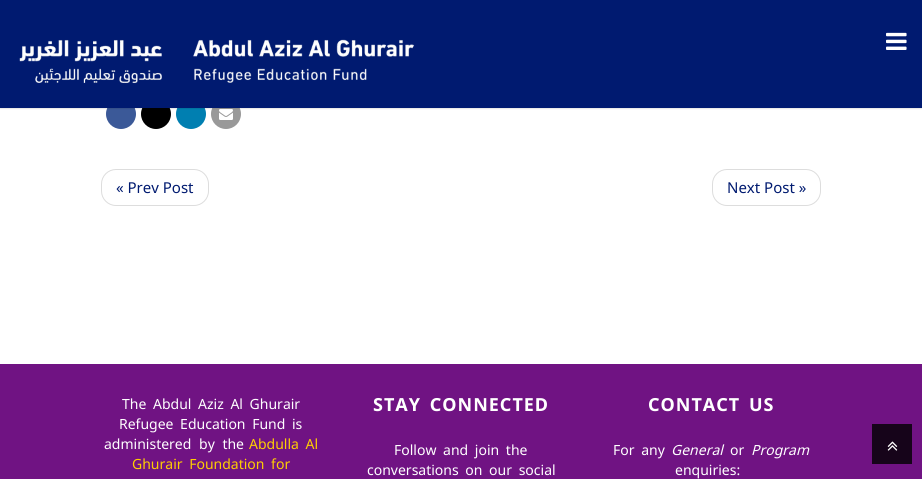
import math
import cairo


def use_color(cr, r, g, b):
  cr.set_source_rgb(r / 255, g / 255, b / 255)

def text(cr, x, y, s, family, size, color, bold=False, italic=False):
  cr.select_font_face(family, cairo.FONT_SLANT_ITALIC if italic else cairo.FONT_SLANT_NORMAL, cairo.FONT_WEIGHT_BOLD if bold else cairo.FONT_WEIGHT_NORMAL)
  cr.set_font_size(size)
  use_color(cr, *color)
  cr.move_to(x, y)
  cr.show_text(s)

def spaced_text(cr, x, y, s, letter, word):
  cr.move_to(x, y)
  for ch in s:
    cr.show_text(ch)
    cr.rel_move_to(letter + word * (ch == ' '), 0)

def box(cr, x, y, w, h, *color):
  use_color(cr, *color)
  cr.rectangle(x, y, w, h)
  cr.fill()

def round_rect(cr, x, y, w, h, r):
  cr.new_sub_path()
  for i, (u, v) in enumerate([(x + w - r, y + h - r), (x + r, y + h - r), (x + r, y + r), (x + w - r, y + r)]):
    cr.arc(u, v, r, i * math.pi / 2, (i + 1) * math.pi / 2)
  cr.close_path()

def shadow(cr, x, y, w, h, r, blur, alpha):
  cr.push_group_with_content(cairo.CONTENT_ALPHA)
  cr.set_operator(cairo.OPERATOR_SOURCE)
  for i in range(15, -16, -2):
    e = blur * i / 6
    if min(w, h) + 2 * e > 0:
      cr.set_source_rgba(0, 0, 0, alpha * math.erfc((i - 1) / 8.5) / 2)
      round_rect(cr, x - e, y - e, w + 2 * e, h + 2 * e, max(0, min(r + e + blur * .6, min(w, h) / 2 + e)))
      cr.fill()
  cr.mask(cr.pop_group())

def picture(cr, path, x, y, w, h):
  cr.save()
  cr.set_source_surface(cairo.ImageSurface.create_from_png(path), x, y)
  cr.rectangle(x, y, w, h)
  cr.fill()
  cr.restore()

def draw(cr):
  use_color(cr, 255, 255, 255)
  cr.paint()
  use_color(cr, 59, 89, 152)
  cr.arc(121, 114, 15, 0, 2 * math.pi)
  cr.fill()
  use_color(cr, 0, 0, 0)
  cr.arc(156, 114, 15, 0, 2 * math.pi)
  cr.fill()
  use_color(cr, 0, 127, 177)
  cr.arc(191, 114, 15, 0, 2 * math.pi)
  cr.fill()
  use_color(cr, 153, 153, 153)
  cr.arc(226, 114, 15, 0, 2 * math.pi)
  cr.fill()
  picture(cr, "img_03.png", 219, 109, 14, 11)
  use_color(cr, 0, 0, 0)
  shadow(cr, 0, 1, 922, 108, 0, 0.5, 0.1)
  box(cr, 0, 0, 922, 108, 0, 26, 112)
  picture(cr, "img_01.png", 19, 39, 396, 45)
  picture(cr, "img_02.png", 886, 32, 21, 18)
  round_rect(cr, 101.5, 169.5, 107, 36, 14.5)
  use_color(cr, 221, 221, 221)
  cr.set_line_width(1)
  cr.stroke()
  round_rect(cr, 712.5, 169.5, 108, 36, 14.5)
  cr.stroke()
  box(cr, 0, 364, 922, 115, 112, 19, 131)
  box(cr, 872, 424, 40, 40, 22, 4, 26)
  picture(cr, "img_04.png", 887, 441, 11, 10)
  text(cr, 116, 193, "« Prev Post", "Noto Sans", 15, (0, 26, 112))
  text(cr, 727, 193, "Next Post »", "Noto Sans", 15, (0, 26, 112))
  cr.set_font_size(14)
  use_color(cr, 255, 255, 255)
  spaced_text(cr, 122, 409, "The Abdul Aziz Al Ghurair", 0, 3)
  spaced_text(cr, 119, 429, "Refugee Education Fund is", 0, 3)
  spaced_text(cr, 104, 449, "administered by the", 0, 4)
  use_color(cr, 255, 207, 0)
  spaced_text(cr, 249, 449, "Abdulla Al", 0, 3)
  spaced_text(cr, 132, 469, "Ghurair Foundation for", 0, 3)
  cr.select_font_face("Noto Sans", cairo.FONT_SLANT_NORMAL, cairo.FONT_WEIGHT_BOLD)
  cr.set_font_size(18)
  use_color(cr, 255, 255, 255)
  spaced_text(cr, 373, 411, "STAY CONNECTED", 1, 3)
  cr.select_font_face("Noto Sans")
  cr.set_font_size(14)
  spaced_text(cr, 394, 455, "Follow and join the", 0, 3)
  spaced_text(cr, 367, 475, "conversations on our social", 0, 3)
  cr.select_font_face("Noto Sans", cairo.FONT_SLANT_NORMAL, cairo.FONT_WEIGHT_BOLD)
  cr.set_font_size(18)
  spaced_text(cr, 648, 411, "CONTACT US", 1, 3)
  cr.select_font_face("Noto Sans")
  cr.set_font_size(14)
  spaced_text(cr, 613, 455, "For any", 0, 3)
  text(cr, 671, 455, "General", "Noto Sans", 14, (255, 255, 255), italic=True)
  text(cr, 730, 455, "or", "Noto Sans", 14, (255, 255, 255))
  text(cr, 751, 455, "Program", "Noto Sans", 14, (255, 255, 255), italic=True)
  text(cr, 675, 475, "enquiries:", "Noto Sans", 14, (255, 255, 255))


surface = cairo.ImageSurface(cairo.FORMAT_RGB24, 922, 479)
cr = cairo.Context(surface)
options = cairo.FontOptions()
options.set_hint_metrics(cairo.HINT_METRICS_OFF)
options.set_hint_style(cairo.HINT_STYLE_NONE)
cr.set_font_options(options)
cr.set_miter_limit(4)
draw(cr)
surface.write_to_png("out.png")
